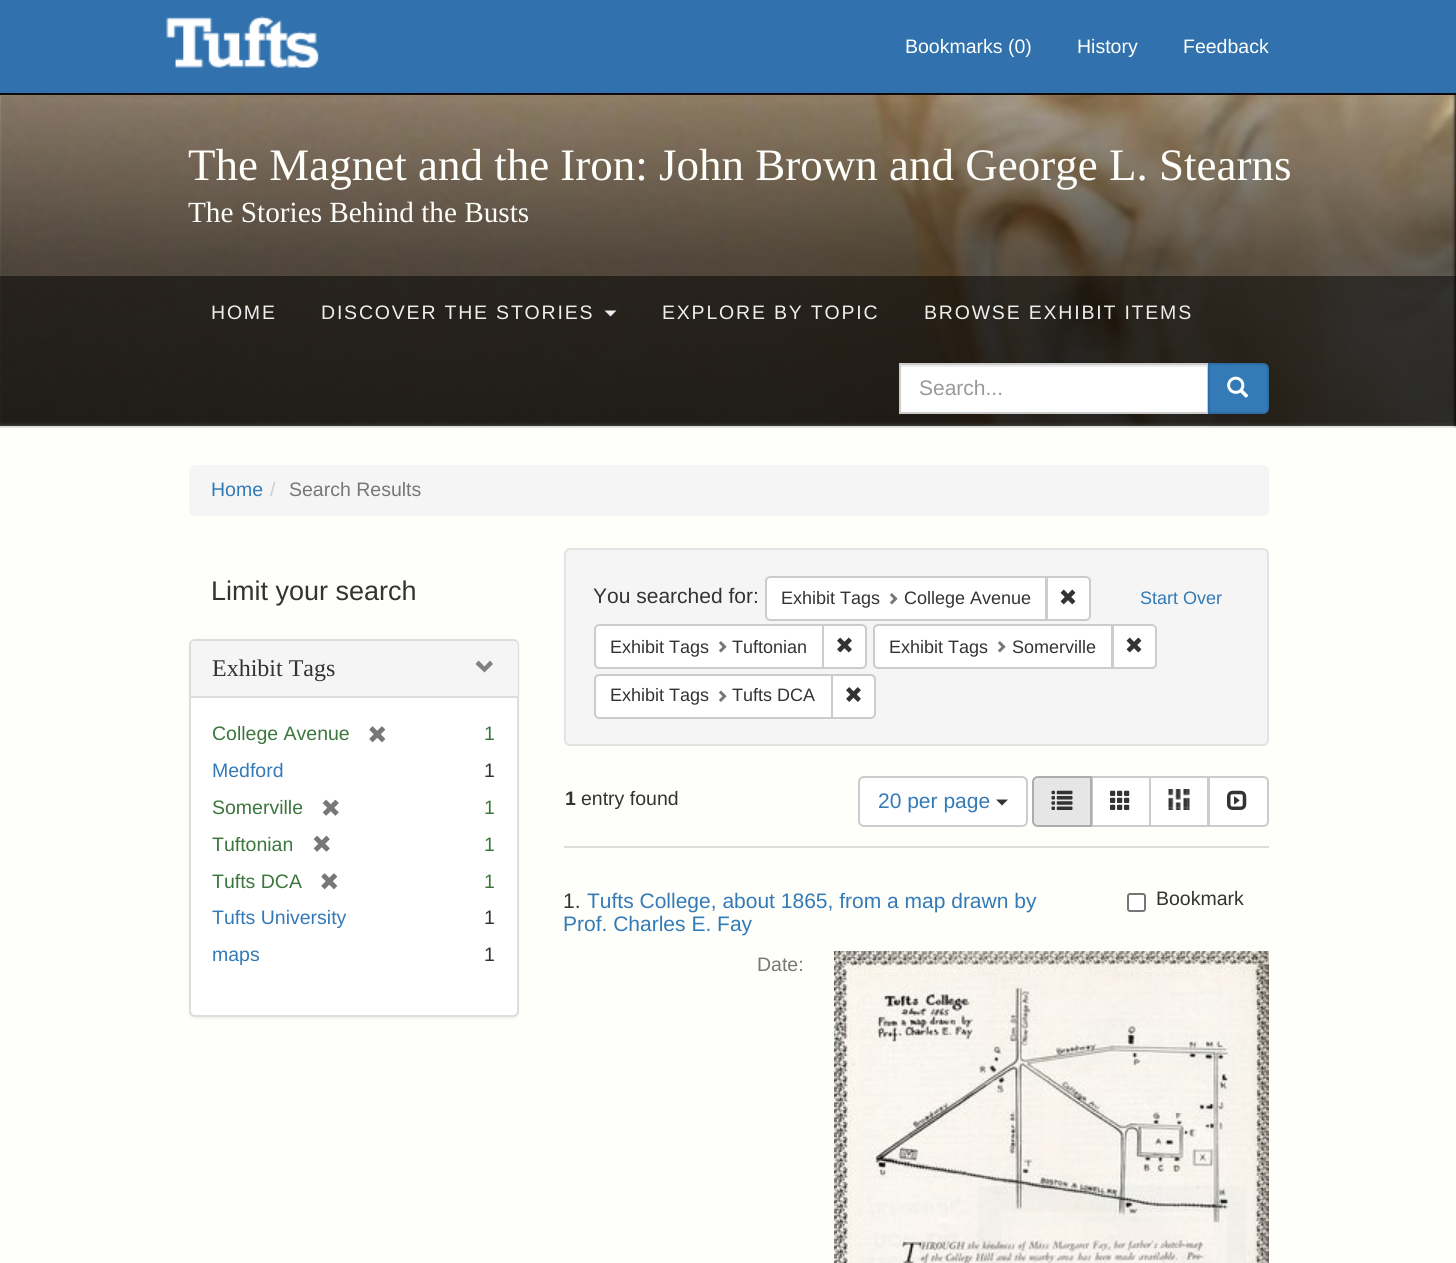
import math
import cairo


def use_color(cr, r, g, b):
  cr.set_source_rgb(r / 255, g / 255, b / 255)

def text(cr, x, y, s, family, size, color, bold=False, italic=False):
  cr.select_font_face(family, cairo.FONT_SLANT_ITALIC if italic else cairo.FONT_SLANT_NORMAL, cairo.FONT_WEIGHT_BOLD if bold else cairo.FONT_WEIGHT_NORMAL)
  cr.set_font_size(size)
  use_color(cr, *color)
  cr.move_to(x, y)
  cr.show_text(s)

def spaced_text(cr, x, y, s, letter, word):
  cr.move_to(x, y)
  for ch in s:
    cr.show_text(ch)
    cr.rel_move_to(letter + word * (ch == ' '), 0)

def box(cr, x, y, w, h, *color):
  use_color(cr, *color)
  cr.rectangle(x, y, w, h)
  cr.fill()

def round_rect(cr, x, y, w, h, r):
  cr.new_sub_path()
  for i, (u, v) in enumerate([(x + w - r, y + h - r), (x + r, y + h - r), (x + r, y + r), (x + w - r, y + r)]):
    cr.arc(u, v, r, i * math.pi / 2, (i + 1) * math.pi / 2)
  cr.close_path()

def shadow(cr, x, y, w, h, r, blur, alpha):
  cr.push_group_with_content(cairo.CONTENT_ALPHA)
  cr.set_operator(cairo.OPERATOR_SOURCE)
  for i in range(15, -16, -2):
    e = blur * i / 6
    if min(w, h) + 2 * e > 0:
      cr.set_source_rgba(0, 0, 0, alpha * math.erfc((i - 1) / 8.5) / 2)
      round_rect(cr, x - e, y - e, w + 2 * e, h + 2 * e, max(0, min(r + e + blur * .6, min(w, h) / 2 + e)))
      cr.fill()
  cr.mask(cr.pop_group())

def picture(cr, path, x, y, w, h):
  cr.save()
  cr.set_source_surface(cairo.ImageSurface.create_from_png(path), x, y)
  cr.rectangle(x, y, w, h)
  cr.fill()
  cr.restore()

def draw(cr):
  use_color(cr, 254, 254, 250)
  cr.paint()
  box(cr, 0, 95, 1456, 331, 245, 245, 245)
  box(cr, 0, 426, 1456, 2, 231, 231, 231)
  picture(cr, "img_02.png", 0, 95, 1456, 332)
  use_color(cr, 0, 0, 0)
  shadow(cr, 1455, 93, 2, 332, 0, 1.5, 1)
  box(cr, 0, 0, 1456, 93, 49, 114, 174)
  box(cr, 0, 93, 1456, 2, 9, 9, 9)
  picture(cr, "img_01.png", 166, 16, 153, 52)
  gradient = cairo.LinearGradient(728, 94, 728, 426)
  gradient.add_color_stop_rgba(0, 0, 0, 0, 0)
  gradient.add_color_stop_rgba(0.5, 0, 0, 0, 0.4)
  gradient.add_color_stop_rgba(1, 0, 0, 0, 0.5)
  cr.set_source(gradient)
  cr.rectangle(0, 103, 1456, 323)
  cr.fill()
  cr.set_source_rgba(0, 0, 0, 0.5)
  cr.rectangle(0, 276, 1456, 150)
  cr.fill()
  use_color(cr, 238, 238, 238)
  cr.new_path()
  cr.move_to(604.5, 310.5)
  cr.line_to(616.5, 310.5)
  cr.line_to(610.5, 316.5)
  cr.close_path()
  cr.fill()
  box(cr, 901, 367, 306, 45, 255, 255, 255)
  box(cr, 900, 365, 308, 2, 236, 236, 236)
  cr.rectangle(900, 364, 308, 49)
  use_color(cr, 204, 204, 204)
  cr.stroke()
  use_color(cr, 51, 122, 183)
  cr.new_path()
  cr.move_to(1209, 364)
  cr.line_to(1263, 364)
  cr.curve_to(1266, 364, 1268, 366, 1268, 369)
  cr.line_to(1268, 408)
  cr.curve_to(1268, 411, 1266, 413, 1263, 413)
  cr.line_to(1209, 413)
  cr.close_path()
  cr.fill_preserve()
  use_color(cr, 46, 109, 164)
  cr.stroke()
  picture(cr, "img_03.png", 1227, 376, 22, 22)
  use_color(cr, 245, 245, 245)
  round_rect(cr, 189, 465, 1080, 51, 6)
  cr.fill()
  use_color(cr, 0, 0, 0)
  shadow(cr, 189, 641, 330, 378, 6, 1, 0.05)
  use_color(cr, 255, 255, 255)
  round_rect(cr, 190, 640, 328, 376, 5)
  cr.fill_preserve()
  use_color(cr, 221, 221, 221)
  cr.stroke()
  use_color(cr, 245, 245, 245)
  cr.new_path()
  cr.move_to(196, 641)
  cr.line_to(513, 641)
  cr.curve_to(516, 641, 518, 643, 518, 646)
  cr.line_to(518, 696)
  cr.line_to(191, 696)
  cr.line_to(191, 646)
  cr.curve_to(191, 643, 193, 641, 196, 641)
  cr.close_path()
  cr.fill()
  use_color(cr, 128, 128, 128)
  cr.new_path()
  cr.move_to(493, 664)
  cr.line_to(484.5, 672.5)
  cr.line_to(475.5, 664)
  cr.line_to(478.5, 660.5)
  cr.line_to(484.5, 666.5)
  cr.line_to(490, 660.5)
  cr.close_path()
  cr.fill()
  box(cr, 191, 696, 327, 2, 221, 221, 221)
  picture(cr, "img_04.png", 369, 726, 17, 17)
  picture(cr, "img_05.png", 322, 799, 17, 17)
  picture(cr, "img_05.png", 313, 835, 17, 17)
  picture(cr, "img_04.png", 321, 873, 17, 17)
  use_color(cr, 245, 245, 245)
  round_rect(cr, 564, 548, 705, 198, 6)
  cr.fill()
  use_color(cr, 233, 233, 233)
  cr.new_path()
  cr.move_to(570, 550)
  cr.line_to(1263, 550)
  cr.curve_to(1265, 550, 1268, 553, 1268, 555)
  cr.line_to(1268, 554)
  cr.curve_to(1268, 551, 1266, 549, 1263, 549)
  cr.line_to(571, 549)
  cr.curve_to(568, 549, 566, 551, 566, 554)
  cr.line_to(566, 555)
  cr.curve_to(566, 553, 568, 550, 570, 550)
  cr.close_path()
  cr.fill()
  round_rect(cr, 565, 549, 703, 196, 5)
  use_color(cr, 227, 227, 227)
  cr.stroke()
  use_color(cr, 255, 255, 255)
  cr.new_path()
  cr.move_to(770, 577)
  cr.line_to(1046, 577)
  cr.line_to(1046, 620)
  cr.line_to(770, 620)
  cr.curve_to(768, 620, 766, 618, 766, 616)
  cr.line_to(766, 581)
  cr.curve_to(766, 579, 768, 577, 770, 577)
  cr.close_path()
  cr.fill_preserve()
  use_color(cr, 204, 204, 204)
  cr.stroke()
  picture(cr, "img_06.png", 889, 593, 9, 12)
  use_color(cr, 255, 255, 255)
  cr.new_path()
  cr.move_to(1047, 577)
  cr.line_to(1086, 577)
  cr.curve_to(1088, 577, 1090, 579, 1090, 581)
  cr.line_to(1090, 616)
  cr.curve_to(1090, 618, 1088, 620, 1086, 620)
  cr.line_to(1047, 620)
  cr.close_path()
  cr.fill_preserve()
  use_color(cr, 204, 204, 204)
  cr.stroke()
  picture(cr, "img_07.png", 1060, 589, 16, 16)
  use_color(cr, 255, 255, 255)
  cr.new_path()
  cr.move_to(599, 625)
  cr.line_to(823, 625)
  cr.line_to(823, 668)
  cr.line_to(599, 668)
  cr.curve_to(597, 668, 595, 666, 595, 664)
  cr.line_to(595, 629)
  cr.curve_to(595, 627, 597, 625, 599, 625)
  cr.close_path()
  cr.fill_preserve()
  use_color(cr, 204, 204, 204)
  cr.stroke()
  picture(cr, "img_06.png", 718, 641, 9, 12)
  use_color(cr, 255, 255, 255)
  cr.new_path()
  cr.move_to(823, 625)
  cr.line_to(862, 625)
  cr.curve_to(864, 625, 866, 627, 866, 629)
  cr.line_to(866, 664)
  cr.curve_to(866, 666, 864, 668, 862, 668)
  cr.line_to(823, 668)
  cr.close_path()
  cr.fill_preserve()
  use_color(cr, 204, 204, 204)
  cr.stroke()
  picture(cr, "img_08.png", 837, 637, 15, 16)
  use_color(cr, 255, 255, 255)
  cr.new_path()
  cr.move_to(878, 625)
  cr.line_to(1112, 625)
  cr.line_to(1112, 668)
  cr.line_to(878, 668)
  cr.curve_to(876, 668, 874, 666, 874, 664)
  cr.line_to(874, 629)
  cr.curve_to(874, 627, 876, 625, 878, 625)
  cr.close_path()
  cr.fill_preserve()
  use_color(cr, 204, 204, 204)
  cr.stroke()
  picture(cr, "img_06.png", 997, 641, 9, 12)
  use_color(cr, 255, 255, 255)
  cr.new_path()
  cr.move_to(1113, 625)
  cr.line_to(1152, 625)
  cr.curve_to(1154, 625, 1156, 627, 1156, 629)
  cr.line_to(1156, 664)
  cr.curve_to(1156, 666, 1154, 668, 1152, 668)
  cr.line_to(1113, 668)
  cr.close_path()
  cr.fill_preserve()
  use_color(cr, 204, 204, 204)
  cr.stroke()
  picture(cr, "img_07.png", 1126, 637, 16, 16)
  use_color(cr, 255, 255, 255)
  cr.new_path()
  cr.move_to(599, 675)
  cr.line_to(832, 675)
  cr.line_to(832, 718)
  cr.line_to(599, 718)
  cr.curve_to(597, 718, 595, 716, 595, 714)
  cr.line_to(595, 679)
  cr.curve_to(595, 677, 597, 675, 599, 675)
  cr.close_path()
  cr.fill_preserve()
  use_color(cr, 204, 204, 204)
  cr.stroke()
  picture(cr, "img_09.png", 718, 690, 9, 12)
  use_color(cr, 255, 255, 255)
  cr.new_path()
  cr.move_to(832, 675)
  cr.line_to(871, 675)
  cr.curve_to(873, 675, 875, 677, 875, 679)
  cr.line_to(875, 714)
  cr.curve_to(875, 716, 873, 718, 871, 718)
  cr.line_to(832, 718)
  cr.close_path()
  cr.fill_preserve()
  use_color(cr, 204, 204, 204)
  cr.stroke()
  picture(cr, "img_10.png", 846, 687, 15, 15)
  box(cr, 564, 846, 705, 2, 221, 221, 221)
  use_color(cr, 255, 255, 255)
  round_rect(cr, 859, 777, 168, 49, 5)
  cr.fill_preserve()
  use_color(cr, 204, 204, 204)
  cr.stroke()
  use_color(cr, 51, 51, 51)
  cr.new_path()
  cr.move_to(996, 799.5)
  cr.line_to(1008, 799.5)
  cr.line_to(1002, 805.5)
  cr.close_path()
  cr.fill()
  use_color(cr, 255, 255, 255)
  cr.rectangle(1092, 777, 58, 49)
  cr.fill_preserve()
  use_color(cr, 204, 204, 204)
  cr.stroke()
  use_color(cr, 230, 230, 230)
  cr.new_path()
  cr.move_to(1038, 777)
  cr.line_to(1091, 777)
  cr.line_to(1091, 826)
  cr.line_to(1038, 826)
  cr.curve_to(1035, 826, 1033, 824, 1033, 821)
  cr.line_to(1033, 782)
  cr.curve_to(1033, 779, 1035, 777, 1038, 777)
  cr.close_path()
  cr.fill_preserve()
  use_color(cr, 173, 173, 173)
  cr.stroke()
  picture(cr, "img_11.png", 1051, 790, 22, 20)
  picture(cr, "img_12.png", 1110, 790, 20, 20)
  use_color(cr, 255, 255, 255)
  cr.rectangle(1150, 777, 58, 49)
  cr.fill_preserve()
  use_color(cr, 204, 204, 204)
  cr.stroke()
  picture(cr, "img_13.png", 1168, 789, 22, 21)
  use_color(cr, 255, 255, 255)
  cr.new_path()
  cr.move_to(1209, 777)
  cr.line_to(1263, 777)
  cr.curve_to(1266, 777, 1268, 779, 1268, 782)
  cr.line_to(1268, 821)
  cr.curve_to(1268, 824, 1266, 826, 1263, 826)
  cr.line_to(1209, 826)
  cr.close_path()
  cr.fill_preserve()
  use_color(cr, 204, 204, 204)
  cr.stroke()
  picture(cr, "img_14.png", 1227, 790, 20, 20)
  use_color(cr, 255, 255, 255)
  round_rect(cr, 1128, 894, 17, 17, 2)
  cr.fill_preserve()
  use_color(cr, 118, 118, 118)
  cr.stroke()
  picture(cr, "img_15.png", 834, 951, 435, 312)
  text(cr, 905, 53, "Bookmarks (0)", "Liberation Sans", 19.5, (254, 254, 250))
  text(cr, 1077, 53, "History", "Liberation Sans", 19.5, (254, 254, 250))
  text(cr, 1183, 53, "Feedback", "Liberation Sans", 19.5, (254, 254, 250))
  text(cr, 188, 180, "The Magnet and the Iron: John Brown and George L. Stearns", "Liberation Serif", 45, (254, 254, 250))
  text(cr, 188, 222, "The Stories Behind the Busts", "Liberation Serif", 29.25, (254, 254, 250))
  cr.select_font_face("Liberation Sans")
  cr.set_font_size(19.5)
  use_color(cr, 238, 238, 238)
  spaced_text(cr, 211, 319, "HOME", 1.8, 0)
  spaced_text(cr, 321, 319, "DISCOVER THE STORIES", 1.8, 0)
  spaced_text(cr, 662, 319, "EXPLORE BY TOPIC", 1.8, 0)
  spaced_text(cr, 924, 319, "BROWSE EXHIBIT ITEMS", 1.8, 0)
  text(cr, 919, 395, "Search...", "Liberation Sans", 21, (153, 153, 153))
  text(cr, 211, 496, "Home", "Liberation Sans", 19.5, (51, 122, 183))
  text(cr, 270, 496, "/", "Liberation Sans", 19.5, (204, 204, 204))
  text(cr, 289, 496, "Search Results", "Liberation Sans", 19.5, (119, 119, 119))
  text(cr, 211, 600, "Limit your search", "Liberation Sans", 27, (51, 51, 51))
  text(cr, 212, 676, "Exhibit Tags", "Liberation Serif", 24, (51, 51, 51))
  text(cr, 212, 740, "College Avenue", "Liberation Sans", 19.5, (60, 118, 61))
  text(cr, 484, 740, "1", "Liberation Sans", 19.5, (60, 118, 61))
  text(cr, 212, 777, "Medford", "Liberation Sans", 19.5, (51, 122, 183))
  text(cr, 484, 777, "1", "Liberation Sans", 19.5, (51, 51, 51))
  text(cr, 212, 814, "Somerville", "Liberation Sans", 19.5, (60, 118, 61))
  text(cr, 484, 814, "1", "Liberation Sans", 19.5, (60, 118, 61))
  text(cr, 212, 851, "Tuftonian", "Liberation Sans", 19.5, (60, 118, 61))
  text(cr, 484, 851, "1", "Liberation Sans", 19.5, (60, 118, 61))
  text(cr, 212, 888, "Tufts DCA", "Liberation Sans", 19.5, (60, 118, 61))
  text(cr, 484, 888, "1", "Liberation Sans", 19.5, (60, 118, 61))
  text(cr, 212, 924, "Tufts University", "Liberation Sans", 19.5, (51, 122, 183))
  text(cr, 484, 924, "1", "Liberation Sans", 19.5, (51, 51, 51))
  text(cr, 212, 961, "maps", "Liberation Sans", 19.5, (51, 122, 183))
  text(cr, 484, 961, "1", "Liberation Sans", 19.5, (51, 51, 51))
  text(cr, 593, 603, "You searched for:", "Liberation Sans", 21, (51, 51, 51))
  text(cr, 781, 604, "Exhibit Tags", "Liberation Sans", 18, (51, 51, 51))
  text(cr, 904, 604, "College Avenue", "Liberation Sans", 18, (51, 51, 51))
  text(cr, 1140, 604, "Start Over", "Liberation Sans", 18, (51, 122, 183))
  text(cr, 610, 653, "Exhibit Tags", "Liberation Sans", 18, (51, 51, 51))
  text(cr, 732, 653, "Tuftonian", "Liberation Sans", 18, (51, 51, 51))
  text(cr, 889, 653, "Exhibit Tags", "Liberation Sans", 18, (51, 51, 51))
  text(cr, 1012, 653, "Somerville", "Liberation Sans", 18, (51, 51, 51))
  text(cr, 610, 701, "Exhibit Tags", "Liberation Sans", 18, (51, 51, 51))
  text(cr, 732, 701, "Tufts DCA", "Liberation Sans", 18, (51, 51, 51))
  text(cr, 565, 805, "1", "Liberation Sans", 19.5, (51, 51, 51), bold=True)
  text(cr, 581, 805, "entry found", "Liberation Sans", 19.5, (51, 51, 51))
  text(cr, 878, 808, "20 per page", "Liberation Sans", 21, (51, 122, 183))
  text(cr, 563, 908, "1.", "Liberation Sans", 21, (51, 51, 51))
  text(cr, 587, 908, "Tufts College, about 1865, from a map drawn by", "Liberation Sans", 21, (51, 122, 183))
  text(cr, 563, 931, "Prof. Charles E. Fay", "Liberation Sans", 21, (51, 122, 183))
  text(cr, 1156, 905, "Bookmark", "Liberation Sans", 19.5, (51, 51, 51))
  text(cr, 757, 971, "Date:", "Liberation Sans", 19.5, (119, 119, 119))


surface = cairo.ImageSurface(cairo.FORMAT_RGB24, 1456, 1263)
cr = cairo.Context(surface)
options = cairo.FontOptions()
options.set_hint_metrics(cairo.HINT_METRICS_OFF)
options.set_hint_style(cairo.HINT_STYLE_NONE)
cr.set_font_options(options)
cr.set_miter_limit(4)
draw(cr)
surface.write_to_png("out.png")
